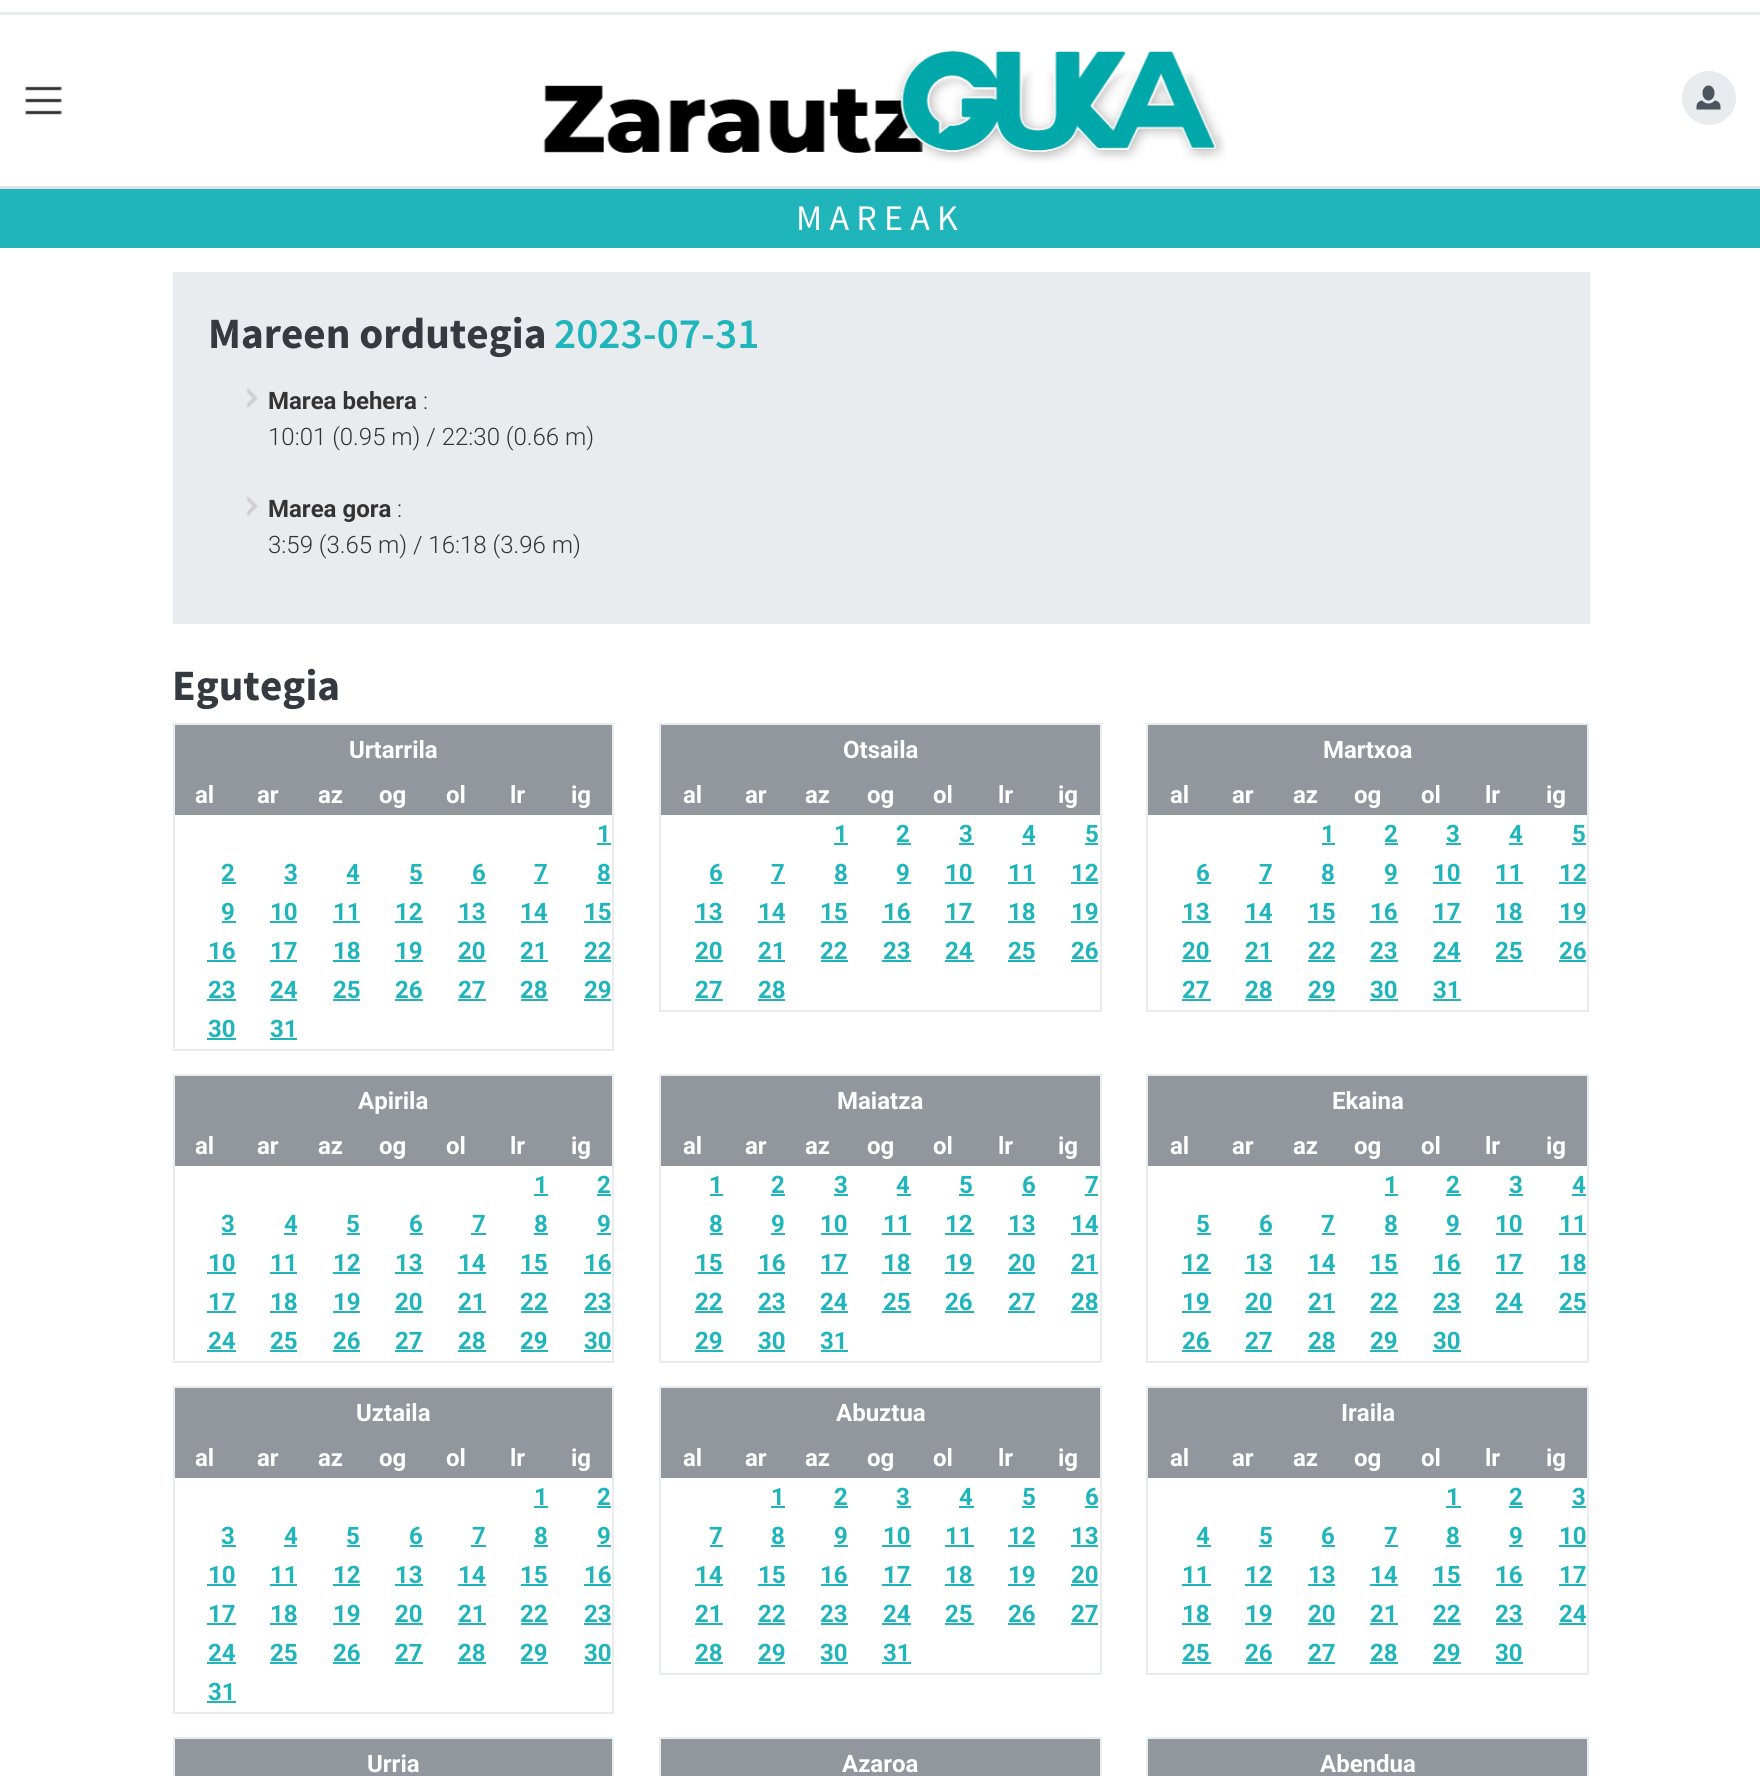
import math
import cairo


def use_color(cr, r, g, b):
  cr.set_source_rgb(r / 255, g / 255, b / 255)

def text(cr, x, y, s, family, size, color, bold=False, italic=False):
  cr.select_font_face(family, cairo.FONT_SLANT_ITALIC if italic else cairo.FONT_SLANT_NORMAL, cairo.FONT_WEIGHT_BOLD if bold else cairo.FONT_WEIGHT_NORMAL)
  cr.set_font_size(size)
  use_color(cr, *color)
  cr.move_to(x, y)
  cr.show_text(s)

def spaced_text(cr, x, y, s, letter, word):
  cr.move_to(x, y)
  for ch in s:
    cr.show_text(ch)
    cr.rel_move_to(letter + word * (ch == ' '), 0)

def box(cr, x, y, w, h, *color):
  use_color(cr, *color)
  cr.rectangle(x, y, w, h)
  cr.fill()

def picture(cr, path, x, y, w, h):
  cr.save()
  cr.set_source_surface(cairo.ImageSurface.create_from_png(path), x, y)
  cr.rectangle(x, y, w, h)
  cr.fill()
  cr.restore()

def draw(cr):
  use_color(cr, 255, 255, 255)
  cr.paint()
  box(cr, 0, 12, 1760, 3, 233, 236, 239)
  picture(cr, "img_01.png", 25, 86, 37, 29)
  picture(cr, "img_02.png", 543, 51, 683, 112)
  cr.arc(1709, 98, 27, 0, 2 * math.pi)
  cr.fill()
  picture(cr, "img_03.png", 1696, 85, 25, 25)
  box(cr, 0, 186, 1760, 3, 222, 226, 230)
  box(cr, 0, 189, 1760, 59, 32, 181, 186)
  box(cr, 173, 272, 1417, 352, 233, 236, 239)
  picture(cr, "img_04.png", 246, 388, 12, 21)
  picture(cr, "img_04.png", 246, 496, 12, 21)
  box(cr, 173, 723, 441, 2, 233, 236, 239)
  box(cr, 612, 723, 2, 327, 233, 236, 239)
  box(cr, 173, 1049, 441, 2, 233, 236, 239)
  box(cr, 173, 723, 2, 327, 233, 236, 239)
  box(cr, 175, 725, 437, 51, 145, 151, 157)
  box(cr, 175, 776, 437, 39, 145, 151, 157)
  box(cr, 597, 843, 14, 2, 32, 181, 186)
  box(cr, 222, 882, 14, 2, 32, 181, 186)
  box(cr, 284, 882, 13, 2, 32, 181, 186)
  box(cr, 347, 882, 13, 2, 32, 181, 186)
  box(cr, 410, 882, 13, 2, 32, 181, 186)
  box(cr, 471, 882, 15, 2, 32, 181, 186)
  box(cr, 534, 882, 14, 2, 32, 181, 186)
  box(cr, 597, 882, 14, 2, 32, 181, 186)
  box(cr, 222, 921, 14, 2, 32, 181, 186)
  box(cr, 270, 921, 27, 2, 32, 181, 186)
  box(cr, 333, 921, 27, 2, 32, 181, 186)
  box(cr, 395, 921, 28, 2, 32, 181, 186)
  box(cr, 458, 921, 28, 2, 32, 181, 186)
  box(cr, 521, 921, 27, 2, 32, 181, 186)
  box(cr, 584, 921, 27, 2, 32, 181, 186)
  box(cr, 207, 960, 29, 2, 32, 181, 186)
  box(cr, 270, 960, 27, 2, 32, 181, 186)
  box(cr, 333, 960, 27, 2, 32, 181, 186)
  box(cr, 395, 960, 28, 2, 32, 181, 186)
  box(cr, 458, 960, 28, 2, 32, 181, 186)
  box(cr, 521, 960, 27, 2, 32, 181, 186)
  box(cr, 584, 960, 27, 2, 32, 181, 186)
  box(cr, 207, 999, 29, 2, 32, 181, 186)
  box(cr, 270, 999, 27, 2, 32, 181, 186)
  box(cr, 333, 999, 27, 2, 32, 181, 186)
  box(cr, 395, 999, 28, 2, 32, 181, 186)
  box(cr, 458, 999, 28, 2, 32, 181, 186)
  box(cr, 521, 999, 27, 2, 32, 181, 186)
  box(cr, 584, 999, 27, 2, 32, 181, 186)
  box(cr, 207, 1038, 29, 2, 32, 181, 186)
  box(cr, 270, 1038, 27, 2, 32, 181, 186)
  box(cr, 659, 723, 442, 2, 233, 236, 239)
  box(cr, 1100, 723, 2, 288, 233, 236, 239)
  box(cr, 659, 1010, 442, 2, 233, 236, 239)
  box(cr, 659, 723, 2, 288, 233, 236, 239)
  box(cr, 661, 725, 439, 51, 145, 151, 157)
  box(cr, 661, 776, 439, 39, 145, 151, 157)
  box(cr, 834, 843, 14, 2, 32, 181, 186)
  box(cr, 897, 843, 14, 2, 32, 181, 186)
  box(cr, 959, 843, 15, 2, 32, 181, 186)
  box(cr, 1022, 843, 13, 2, 32, 181, 186)
  box(cr, 1085, 843, 13, 2, 32, 181, 186)
  box(cr, 710, 882, 13, 2, 32, 181, 186)
  box(cr, 771, 882, 14, 2, 32, 181, 186)
  box(cr, 834, 882, 14, 2, 32, 181, 186)
  box(cr, 897, 882, 14, 2, 32, 181, 186)
  box(cr, 945, 882, 29, 2, 32, 181, 186)
  box(cr, 1008, 882, 27, 2, 32, 181, 186)
  box(cr, 1071, 882, 27, 2, 32, 181, 186)
  box(cr, 695, 921, 28, 2, 32, 181, 186)
  box(cr, 758, 921, 27, 2, 32, 181, 186)
  box(cr, 821, 921, 27, 2, 32, 181, 186)
  box(cr, 882, 921, 29, 2, 32, 181, 186)
  box(cr, 945, 921, 29, 2, 32, 181, 186)
  box(cr, 1008, 921, 27, 2, 32, 181, 186)
  box(cr, 1071, 921, 27, 2, 32, 181, 186)
  box(cr, 695, 960, 28, 2, 32, 181, 186)
  box(cr, 758, 960, 27, 2, 32, 181, 186)
  box(cr, 821, 960, 27, 2, 32, 181, 186)
  box(cr, 882, 960, 29, 2, 32, 181, 186)
  box(cr, 945, 960, 29, 2, 32, 181, 186)
  box(cr, 1008, 960, 27, 2, 32, 181, 186)
  box(cr, 1071, 960, 27, 2, 32, 181, 186)
  box(cr, 695, 999, 28, 2, 32, 181, 186)
  box(cr, 758, 999, 27, 2, 32, 181, 186)
  box(cr, 1146, 723, 443, 2, 233, 236, 239)
  box(cr, 1587, 723, 2, 288, 233, 236, 239)
  box(cr, 1146, 1010, 443, 2, 233, 236, 239)
  box(cr, 1146, 723, 2, 288, 233, 236, 239)
  box(cr, 1148, 725, 439, 51, 145, 151, 157)
  box(cr, 1148, 776, 439, 39, 145, 151, 157)
  box(cr, 1322, 843, 13, 2, 32, 181, 186)
  box(cr, 1385, 843, 13, 2, 32, 181, 186)
  box(cr, 1446, 843, 15, 2, 32, 181, 186)
  box(cr, 1509, 843, 14, 2, 32, 181, 186)
  box(cr, 1572, 843, 14, 2, 32, 181, 186)
  box(cr, 1197, 882, 14, 2, 32, 181, 186)
  box(cr, 1259, 882, 13, 2, 32, 181, 186)
  box(cr, 1322, 882, 13, 2, 32, 181, 186)
  box(cr, 1385, 882, 13, 2, 32, 181, 186)
  box(cr, 1433, 882, 28, 2, 32, 181, 186)
  box(cr, 1496, 882, 27, 2, 32, 181, 186)
  box(cr, 1559, 882, 27, 2, 32, 181, 186)
  box(cr, 1182, 921, 29, 2, 32, 181, 186)
  box(cr, 1245, 921, 27, 2, 32, 181, 186)
  box(cr, 1308, 921, 27, 2, 32, 181, 186)
  box(cr, 1370, 921, 28, 2, 32, 181, 186)
  box(cr, 1433, 921, 28, 2, 32, 181, 186)
  box(cr, 1496, 921, 27, 2, 32, 181, 186)
  box(cr, 1559, 921, 27, 2, 32, 181, 186)
  box(cr, 1182, 960, 29, 2, 32, 181, 186)
  box(cr, 1245, 960, 27, 2, 32, 181, 186)
  box(cr, 1308, 960, 27, 2, 32, 181, 186)
  box(cr, 1370, 960, 28, 2, 32, 181, 186)
  box(cr, 1433, 960, 28, 2, 32, 181, 186)
  box(cr, 1496, 960, 27, 2, 32, 181, 186)
  box(cr, 1559, 960, 27, 2, 32, 181, 186)
  box(cr, 1182, 999, 29, 2, 32, 181, 186)
  box(cr, 1245, 999, 27, 2, 32, 181, 186)
  box(cr, 1308, 999, 27, 2, 32, 181, 186)
  box(cr, 1370, 999, 28, 2, 32, 181, 186)
  box(cr, 1433, 999, 28, 2, 32, 181, 186)
  box(cr, 173, 1074, 441, 2, 233, 236, 239)
  box(cr, 612, 1074, 2, 288, 233, 236, 239)
  box(cr, 173, 1361, 441, 2, 233, 236, 239)
  box(cr, 173, 1074, 2, 288, 233, 236, 239)
  box(cr, 175, 1076, 437, 51, 145, 151, 157)
  box(cr, 175, 1127, 437, 39, 145, 151, 157)
  box(cr, 534, 1194, 14, 2, 32, 181, 186)
  box(cr, 597, 1194, 14, 2, 32, 181, 186)
  box(cr, 222, 1233, 14, 2, 32, 181, 186)
  box(cr, 284, 1233, 13, 2, 32, 181, 186)
  box(cr, 347, 1233, 13, 2, 32, 181, 186)
  box(cr, 410, 1233, 13, 2, 32, 181, 186)
  box(cr, 471, 1233, 15, 2, 32, 181, 186)
  box(cr, 534, 1233, 14, 2, 32, 181, 186)
  box(cr, 597, 1233, 14, 2, 32, 181, 186)
  box(cr, 207, 1272, 29, 2, 32, 181, 186)
  box(cr, 270, 1272, 27, 2, 32, 181, 186)
  box(cr, 333, 1272, 27, 2, 32, 181, 186)
  box(cr, 395, 1272, 28, 2, 32, 181, 186)
  box(cr, 458, 1272, 28, 2, 32, 181, 186)
  box(cr, 521, 1272, 27, 2, 32, 181, 186)
  box(cr, 584, 1272, 27, 2, 32, 181, 186)
  box(cr, 207, 1311, 29, 2, 32, 181, 186)
  box(cr, 270, 1311, 27, 2, 32, 181, 186)
  box(cr, 333, 1311, 27, 2, 32, 181, 186)
  box(cr, 395, 1311, 28, 2, 32, 181, 186)
  box(cr, 458, 1311, 28, 2, 32, 181, 186)
  box(cr, 521, 1311, 27, 2, 32, 181, 186)
  box(cr, 584, 1311, 27, 2, 32, 181, 186)
  box(cr, 207, 1350, 29, 2, 32, 181, 186)
  box(cr, 270, 1350, 27, 2, 32, 181, 186)
  box(cr, 333, 1350, 27, 2, 32, 181, 186)
  box(cr, 395, 1350, 28, 2, 32, 181, 186)
  box(cr, 458, 1350, 28, 2, 32, 181, 186)
  box(cr, 521, 1350, 27, 2, 32, 181, 186)
  box(cr, 584, 1350, 27, 2, 32, 181, 186)
  box(cr, 659, 1074, 442, 2, 233, 236, 239)
  box(cr, 1100, 1074, 2, 288, 233, 236, 239)
  box(cr, 659, 1361, 442, 2, 233, 236, 239)
  box(cr, 659, 1074, 2, 288, 233, 236, 239)
  box(cr, 661, 1076, 439, 51, 145, 151, 157)
  box(cr, 661, 1127, 439, 39, 145, 151, 157)
  box(cr, 710, 1194, 13, 2, 32, 181, 186)
  box(cr, 771, 1194, 14, 2, 32, 181, 186)
  box(cr, 834, 1194, 14, 2, 32, 181, 186)
  box(cr, 897, 1194, 14, 2, 32, 181, 186)
  box(cr, 959, 1194, 15, 2, 32, 181, 186)
  box(cr, 1022, 1194, 13, 2, 32, 181, 186)
  box(cr, 1085, 1194, 13, 2, 32, 181, 186)
  box(cr, 710, 1233, 13, 2, 32, 181, 186)
  box(cr, 771, 1233, 14, 2, 32, 181, 186)
  box(cr, 821, 1233, 27, 2, 32, 181, 186)
  box(cr, 882, 1233, 29, 2, 32, 181, 186)
  box(cr, 945, 1233, 29, 2, 32, 181, 186)
  box(cr, 1008, 1233, 27, 2, 32, 181, 186)
  box(cr, 1071, 1233, 27, 2, 32, 181, 186)
  box(cr, 695, 1272, 28, 2, 32, 181, 186)
  box(cr, 758, 1272, 27, 2, 32, 181, 186)
  box(cr, 821, 1272, 27, 2, 32, 181, 186)
  box(cr, 882, 1272, 29, 2, 32, 181, 186)
  box(cr, 945, 1272, 29, 2, 32, 181, 186)
  box(cr, 1008, 1272, 27, 2, 32, 181, 186)
  box(cr, 1071, 1272, 27, 2, 32, 181, 186)
  box(cr, 695, 1311, 28, 2, 32, 181, 186)
  box(cr, 758, 1311, 27, 2, 32, 181, 186)
  box(cr, 821, 1311, 27, 2, 32, 181, 186)
  box(cr, 882, 1311, 29, 2, 32, 181, 186)
  box(cr, 945, 1311, 29, 2, 32, 181, 186)
  box(cr, 1008, 1311, 27, 2, 32, 181, 186)
  box(cr, 1071, 1311, 27, 2, 32, 181, 186)
  box(cr, 695, 1350, 28, 2, 32, 181, 186)
  box(cr, 758, 1350, 27, 2, 32, 181, 186)
  box(cr, 821, 1350, 27, 2, 32, 181, 186)
  box(cr, 1146, 1074, 443, 2, 233, 236, 239)
  box(cr, 1587, 1074, 2, 288, 233, 236, 239)
  box(cr, 1146, 1361, 443, 2, 233, 236, 239)
  box(cr, 1146, 1074, 2, 288, 233, 236, 239)
  box(cr, 1148, 1076, 439, 51, 145, 151, 157)
  box(cr, 1148, 1127, 439, 39, 145, 151, 157)
  box(cr, 1385, 1194, 13, 2, 32, 181, 186)
  box(cr, 1446, 1194, 15, 2, 32, 181, 186)
  box(cr, 1509, 1194, 14, 2, 32, 181, 186)
  box(cr, 1572, 1194, 14, 2, 32, 181, 186)
  box(cr, 1197, 1233, 14, 2, 32, 181, 186)
  box(cr, 1259, 1233, 13, 2, 32, 181, 186)
  box(cr, 1322, 1233, 13, 2, 32, 181, 186)
  box(cr, 1385, 1233, 13, 2, 32, 181, 186)
  box(cr, 1446, 1233, 15, 2, 32, 181, 186)
  box(cr, 1496, 1233, 27, 2, 32, 181, 186)
  box(cr, 1559, 1233, 27, 2, 32, 181, 186)
  box(cr, 1182, 1272, 29, 2, 32, 181, 186)
  box(cr, 1245, 1272, 27, 2, 32, 181, 186)
  box(cr, 1308, 1272, 27, 2, 32, 181, 186)
  box(cr, 1370, 1272, 28, 2, 32, 181, 186)
  box(cr, 1433, 1272, 28, 2, 32, 181, 186)
  box(cr, 1496, 1272, 27, 2, 32, 181, 186)
  box(cr, 1559, 1272, 27, 2, 32, 181, 186)
  box(cr, 1182, 1311, 29, 2, 32, 181, 186)
  box(cr, 1245, 1311, 27, 2, 32, 181, 186)
  box(cr, 1308, 1311, 27, 2, 32, 181, 186)
  box(cr, 1370, 1311, 28, 2, 32, 181, 186)
  box(cr, 1433, 1311, 28, 2, 32, 181, 186)
  box(cr, 1496, 1311, 27, 2, 32, 181, 186)
  box(cr, 1559, 1311, 27, 2, 32, 181, 186)
  box(cr, 1182, 1350, 29, 2, 32, 181, 186)
  box(cr, 1245, 1350, 27, 2, 32, 181, 186)
  box(cr, 1308, 1350, 27, 2, 32, 181, 186)
  box(cr, 1370, 1350, 28, 2, 32, 181, 186)
  box(cr, 1433, 1350, 28, 2, 32, 181, 186)
  box(cr, 173, 1386, 441, 2, 233, 236, 239)
  box(cr, 612, 1386, 2, 327, 233, 236, 239)
  box(cr, 173, 1712, 441, 2, 233, 236, 239)
  box(cr, 173, 1386, 2, 327, 233, 236, 239)
  box(cr, 175, 1388, 437, 51, 145, 151, 157)
  box(cr, 175, 1439, 437, 39, 145, 151, 157)
  box(cr, 534, 1506, 14, 2, 32, 181, 186)
  box(cr, 597, 1506, 14, 2, 32, 181, 186)
  box(cr, 222, 1545, 14, 2, 32, 181, 186)
  box(cr, 284, 1545, 13, 2, 32, 181, 186)
  box(cr, 347, 1545, 13, 2, 32, 181, 186)
  box(cr, 410, 1545, 13, 2, 32, 181, 186)
  box(cr, 471, 1545, 15, 2, 32, 181, 186)
  box(cr, 534, 1545, 14, 2, 32, 181, 186)
  box(cr, 597, 1545, 14, 2, 32, 181, 186)
  box(cr, 207, 1584, 29, 2, 32, 181, 186)
  box(cr, 270, 1584, 27, 2, 32, 181, 186)
  box(cr, 333, 1584, 27, 2, 32, 181, 186)
  box(cr, 395, 1584, 28, 2, 32, 181, 186)
  box(cr, 458, 1584, 28, 2, 32, 181, 186)
  box(cr, 521, 1584, 27, 2, 32, 181, 186)
  box(cr, 584, 1584, 27, 2, 32, 181, 186)
  box(cr, 207, 1623, 29, 2, 32, 181, 186)
  box(cr, 270, 1623, 27, 2, 32, 181, 186)
  box(cr, 333, 1623, 27, 2, 32, 181, 186)
  box(cr, 395, 1623, 28, 2, 32, 181, 186)
  box(cr, 458, 1623, 28, 2, 32, 181, 186)
  box(cr, 521, 1623, 27, 2, 32, 181, 186)
  box(cr, 584, 1623, 27, 2, 32, 181, 186)
  box(cr, 207, 1662, 29, 2, 32, 181, 186)
  box(cr, 270, 1662, 27, 2, 32, 181, 186)
  box(cr, 333, 1662, 27, 2, 32, 181, 186)
  box(cr, 395, 1662, 28, 2, 32, 181, 186)
  box(cr, 458, 1662, 28, 2, 32, 181, 186)
  box(cr, 521, 1662, 27, 2, 32, 181, 186)
  box(cr, 584, 1662, 27, 2, 32, 181, 186)
  box(cr, 207, 1701, 29, 2, 32, 181, 186)
  box(cr, 659, 1386, 442, 2, 233, 236, 239)
  box(cr, 1100, 1386, 2, 288, 233, 236, 239)
  box(cr, 659, 1673, 442, 2, 233, 236, 239)
  box(cr, 659, 1386, 2, 288, 233, 236, 239)
  box(cr, 661, 1388, 439, 51, 145, 151, 157)
  box(cr, 661, 1439, 439, 39, 145, 151, 157)
  box(cr, 771, 1506, 14, 2, 32, 181, 186)
  box(cr, 834, 1506, 14, 2, 32, 181, 186)
  box(cr, 897, 1506, 14, 2, 32, 181, 186)
  box(cr, 959, 1506, 15, 2, 32, 181, 186)
  box(cr, 1022, 1506, 13, 2, 32, 181, 186)
  box(cr, 1085, 1506, 13, 2, 32, 181, 186)
  box(cr, 710, 1545, 13, 2, 32, 181, 186)
  box(cr, 771, 1545, 14, 2, 32, 181, 186)
  box(cr, 834, 1545, 14, 2, 32, 181, 186)
  box(cr, 882, 1545, 29, 2, 32, 181, 186)
  box(cr, 945, 1545, 29, 2, 32, 181, 186)
  box(cr, 1008, 1545, 27, 2, 32, 181, 186)
  box(cr, 1071, 1545, 27, 2, 32, 181, 186)
  box(cr, 695, 1584, 28, 2, 32, 181, 186)
  box(cr, 758, 1584, 27, 2, 32, 181, 186)
  box(cr, 821, 1584, 27, 2, 32, 181, 186)
  box(cr, 882, 1584, 29, 2, 32, 181, 186)
  box(cr, 945, 1584, 29, 2, 32, 181, 186)
  box(cr, 1008, 1584, 27, 2, 32, 181, 186)
  box(cr, 1071, 1584, 27, 2, 32, 181, 186)
  box(cr, 695, 1623, 28, 2, 32, 181, 186)
  box(cr, 758, 1623, 27, 2, 32, 181, 186)
  box(cr, 821, 1623, 27, 2, 32, 181, 186)
  box(cr, 882, 1623, 29, 2, 32, 181, 186)
  box(cr, 945, 1623, 29, 2, 32, 181, 186)
  box(cr, 1008, 1623, 27, 2, 32, 181, 186)
  box(cr, 1071, 1623, 27, 2, 32, 181, 186)
  box(cr, 695, 1662, 28, 2, 32, 181, 186)
  box(cr, 758, 1662, 27, 2, 32, 181, 186)
  box(cr, 821, 1662, 27, 2, 32, 181, 186)
  box(cr, 882, 1662, 29, 2, 32, 181, 186)
  box(cr, 1146, 1386, 443, 2, 233, 236, 239)
  box(cr, 1587, 1386, 2, 288, 233, 236, 239)
  box(cr, 1146, 1673, 443, 2, 233, 236, 239)
  box(cr, 1146, 1386, 2, 288, 233, 236, 239)
  box(cr, 1148, 1388, 439, 51, 145, 151, 157)
  box(cr, 1148, 1439, 439, 39, 145, 151, 157)
  box(cr, 1446, 1506, 15, 2, 32, 181, 186)
  box(cr, 1509, 1506, 14, 2, 32, 181, 186)
  box(cr, 1572, 1506, 14, 2, 32, 181, 186)
  box(cr, 1197, 1545, 14, 2, 32, 181, 186)
  box(cr, 1259, 1545, 13, 2, 32, 181, 186)
  box(cr, 1322, 1545, 13, 2, 32, 181, 186)
  box(cr, 1385, 1545, 13, 2, 32, 181, 186)
  box(cr, 1446, 1545, 15, 2, 32, 181, 186)
  box(cr, 1509, 1545, 14, 2, 32, 181, 186)
  box(cr, 1559, 1545, 27, 2, 32, 181, 186)
  box(cr, 1182, 1584, 29, 2, 32, 181, 186)
  box(cr, 1245, 1584, 27, 2, 32, 181, 186)
  box(cr, 1308, 1584, 27, 2, 32, 181, 186)
  box(cr, 1370, 1584, 28, 2, 32, 181, 186)
  box(cr, 1433, 1584, 28, 2, 32, 181, 186)
  box(cr, 1496, 1584, 27, 2, 32, 181, 186)
  box(cr, 1559, 1584, 27, 2, 32, 181, 186)
  box(cr, 1182, 1623, 29, 2, 32, 181, 186)
  box(cr, 1245, 1623, 27, 2, 32, 181, 186)
  box(cr, 1308, 1623, 27, 2, 32, 181, 186)
  box(cr, 1370, 1623, 28, 2, 32, 181, 186)
  box(cr, 1433, 1623, 28, 2, 32, 181, 186)
  box(cr, 1496, 1623, 27, 2, 32, 181, 186)
  box(cr, 1559, 1623, 27, 2, 32, 181, 186)
  box(cr, 1182, 1662, 29, 2, 32, 181, 186)
  box(cr, 1245, 1662, 27, 2, 32, 181, 186)
  box(cr, 1308, 1662, 27, 2, 32, 181, 186)
  box(cr, 1370, 1662, 28, 2, 32, 181, 186)
  box(cr, 1433, 1662, 28, 2, 32, 181, 186)
  box(cr, 1496, 1662, 27, 2, 32, 181, 186)
  box(cr, 173, 1737, 441, 2, 233, 236, 239)
  box(cr, 612, 1737, 2, 39, 233, 236, 239)
  box(cr, 173, 1737, 2, 39, 233, 236, 239)
  box(cr, 175, 1739, 437, 37, 145, 151, 157)
  box(cr, 659, 1737, 442, 2, 233, 236, 239)
  box(cr, 1100, 1737, 2, 39, 233, 236, 239)
  box(cr, 659, 1737, 2, 39, 233, 236, 239)
  box(cr, 661, 1739, 439, 37, 145, 151, 157)
  box(cr, 1146, 1737, 443, 2, 233, 236, 239)
  box(cr, 1587, 1737, 2, 39, 233, 236, 239)
  box(cr, 1146, 1737, 2, 39, 233, 236, 239)
  box(cr, 1148, 1739, 439, 37, 145, 151, 157)
  cr.select_font_face("Source Sans Pro")
  cr.set_font_size(36)
  use_color(cr, 255, 255, 255)
  spaced_text(cr, 796, 230, "MAREAK", 7.25, 0)
  text(cr, 208, 348, "Mareen ordutegia", "Source Sans Pro", 43.25, (52, 58, 64), bold=True)
  text(cr, 554, 348, "2023-07-31", "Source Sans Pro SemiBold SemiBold", 43.25, (32, 181, 186))
  text(cr, 268, 409, "Marea behera", "Roboto", 24, (51, 51, 51), bold=True)
  text(cr, 423, 409, ":", "Roboto Light", 24, (51, 51, 51))
  text(cr, 268, 445, "10:01 (0.95 m) / 22:30 (0.66 m)", "Roboto Light", 24, (51, 51, 51))
  text(cr, 268, 517, "Marea gora", "Roboto", 24, (51, 51, 51), bold=True)
  text(cr, 397, 517, ":", "Roboto Light", 24, (51, 51, 51))
  text(cr, 268, 553, "3:59 (3.65 m) / 16:18 (3.96 m)", "Roboto Light", 24, (51, 51, 51))
  text(cr, 172, 700, "Egutegia", "Source Sans Pro", 43.25, (52, 58, 64), bold=True)
  text(cr, 349, 758, "Urtarrila", "Roboto", 24, (255, 255, 255), bold=True)
  text(cr, 195, 803, "al", "Roboto", 24, (255, 255, 255), bold=True)
  text(cr, 257, 803, "ar", "Roboto", 24, (255, 255, 255), bold=True)
  text(cr, 318, 803, "az", "Roboto", 24, (255, 255, 255), bold=True)
  text(cr, 379, 803, "og", "Roboto", 24, (255, 255, 255), bold=True)
  text(cr, 446, 803, "ol", "Roboto", 24, (255, 255, 255), bold=True)
  text(cr, 510, 803, "lr", "Roboto", 24, (255, 255, 255), bold=True)
  text(cr, 571, 803, "ig", "Roboto", 24, (255, 255, 255), bold=True)
  text(cr, 597, 842, "1", "Roboto", 24, (32, 181, 186), bold=True)
  text(cr, 221, 881, "2", "Roboto", 24, (32, 181, 186), bold=True)
  text(cr, 284, 881, "3", "Roboto", 24, (32, 181, 186), bold=True)
  text(cr, 346, 881, "4", "Roboto", 24, (32, 181, 186), bold=True)
  text(cr, 409, 881, "5", "Roboto", 24, (32, 181, 186), bold=True)
  text(cr, 472, 881, "6", "Roboto", 24, (32, 181, 186), bold=True)
  text(cr, 534, 881, "7", "Roboto", 24, (32, 181, 186), bold=True)
  text(cr, 597, 881, "8", "Roboto", 24, (32, 181, 186), bold=True)
  text(cr, 221, 920, "9", "Roboto", 24, (32, 181, 186), bold=True)
  text(cr, 270, 920, "10", "Roboto", 24, (32, 181, 186), bold=True)
  text(cr, 333, 920, "11", "Roboto", 24, (32, 181, 186), bold=True)
  text(cr, 395, 920, "12", "Roboto", 24, (32, 181, 186), bold=True)
  text(cr, 458, 920, "13", "Roboto", 24, (32, 181, 186), bold=True)
  text(cr, 520, 920, "14", "Roboto", 24, (32, 181, 186), bold=True)
  text(cr, 584, 920, "15", "Roboto", 24, (32, 181, 186), bold=True)
  text(cr, 208, 959, "16", "Roboto", 24, (32, 181, 186), bold=True)
  text(cr, 270, 959, "17", "Roboto", 24, (32, 181, 186), bold=True)
  text(cr, 333, 959, "18", "Roboto", 24, (32, 181, 186), bold=True)
  text(cr, 395, 959, "19", "Roboto", 24, (32, 181, 186), bold=True)
  text(cr, 458, 959, "20", "Roboto", 24, (32, 181, 186), bold=True)
  text(cr, 520, 959, "21", "Roboto", 24, (32, 181, 186), bold=True)
  text(cr, 584, 959, "22", "Roboto", 24, (32, 181, 186), bold=True)
  text(cr, 208, 998, "23", "Roboto", 24, (32, 181, 186), bold=True)
  text(cr, 270, 998, "24", "Roboto", 24, (32, 181, 186), bold=True)
  text(cr, 333, 998, "25", "Roboto", 24, (32, 181, 186), bold=True)
  text(cr, 395, 998, "26", "Roboto", 24, (32, 181, 186), bold=True)
  text(cr, 458, 998, "27", "Roboto", 24, (32, 181, 186), bold=True)
  text(cr, 520, 998, "28", "Roboto", 24, (32, 181, 186), bold=True)
  text(cr, 584, 998, "29", "Roboto", 24, (32, 181, 186), bold=True)
  text(cr, 208, 1037, "30", "Roboto", 24, (32, 181, 186), bold=True)
  text(cr, 270, 1037, "31", "Roboto", 24, (32, 181, 186), bold=True)
  text(cr, 843, 758, "Otsaila", "Roboto", 24, (255, 255, 255), bold=True)
  text(cr, 683, 803, "al", "Roboto", 24, (255, 255, 255), bold=True)
  text(cr, 745, 803, "ar", "Roboto", 24, (255, 255, 255), bold=True)
  text(cr, 805, 803, "az", "Roboto", 24, (255, 255, 255), bold=True)
  text(cr, 867, 803, "og", "Roboto", 24, (255, 255, 255), bold=True)
  text(cr, 933, 803, "ol", "Roboto", 24, (255, 255, 255), bold=True)
  text(cr, 998, 803, "lr", "Roboto", 24, (255, 255, 255), bold=True)
  text(cr, 1058, 803, "ig", "Roboto", 24, (255, 255, 255), bold=True)
  text(cr, 834, 842, "1", "Roboto", 24, (32, 181, 186), bold=True)
  text(cr, 896, 842, "2", "Roboto", 24, (32, 181, 186), bold=True)
  text(cr, 959, 842, "3", "Roboto", 24, (32, 181, 186), bold=True)
  text(cr, 1022, 842, "4", "Roboto", 24, (32, 181, 186), bold=True)
  text(cr, 1085, 842, "5", "Roboto", 24, (32, 181, 186), bold=True)
  text(cr, 709, 881, "6", "Roboto", 24, (32, 181, 186), bold=True)
  text(cr, 771, 881, "7", "Roboto", 24, (32, 181, 186), bold=True)
  text(cr, 834, 881, "8", "Roboto", 24, (32, 181, 186), bold=True)
  text(cr, 896, 881, "9", "Roboto", 24, (32, 181, 186), bold=True)
  text(cr, 945, 881, "10", "Roboto", 24, (32, 181, 186), bold=True)
  text(cr, 1008, 881, "11", "Roboto", 24, (32, 181, 186), bold=True)
  text(cr, 1071, 881, "12", "Roboto", 24, (32, 181, 186), bold=True)
  text(cr, 695, 920, "13", "Roboto", 24, (32, 181, 186), bold=True)
  text(cr, 758, 920, "14", "Roboto", 24, (32, 181, 186), bold=True)
  text(cr, 820, 920, "15", "Roboto", 24, (32, 181, 186), bold=True)
  text(cr, 883, 920, "16", "Roboto", 24, (32, 181, 186), bold=True)
  text(cr, 945, 920, "17", "Roboto", 24, (32, 181, 186), bold=True)
  text(cr, 1008, 920, "18", "Roboto", 24, (32, 181, 186), bold=True)
  text(cr, 1071, 920, "19", "Roboto", 24, (32, 181, 186), bold=True)
  text(cr, 695, 959, "20", "Roboto", 24, (32, 181, 186), bold=True)
  text(cr, 758, 959, "21", "Roboto", 24, (32, 181, 186), bold=True)
  text(cr, 820, 959, "22", "Roboto", 24, (32, 181, 186), bold=True)
  text(cr, 883, 959, "23", "Roboto", 24, (32, 181, 186), bold=True)
  text(cr, 945, 959, "24", "Roboto", 24, (32, 181, 186), bold=True)
  text(cr, 1008, 959, "25", "Roboto", 24, (32, 181, 186), bold=True)
  text(cr, 1071, 959, "26", "Roboto", 24, (32, 181, 186), bold=True)
  text(cr, 695, 998, "27", "Roboto", 24, (32, 181, 186), bold=True)
  text(cr, 758, 998, "28", "Roboto", 24, (32, 181, 186), bold=True)
  text(cr, 1323, 758, "Martxoa", "Roboto", 24, (255, 255, 255), bold=True)
  text(cr, 1170, 803, "al", "Roboto", 24, (255, 255, 255), bold=True)
  text(cr, 1232, 803, "ar", "Roboto", 24, (255, 255, 255), bold=True)
  text(cr, 1293, 803, "az", "Roboto", 24, (255, 255, 255), bold=True)
  text(cr, 1354, 803, "og", "Roboto", 24, (255, 255, 255), bold=True)
  text(cr, 1421, 803, "ol", "Roboto", 24, (255, 255, 255), bold=True)
  text(cr, 1485, 803, "lr", "Roboto", 24, (255, 255, 255), bold=True)
  text(cr, 1546, 803, "ig", "Roboto", 24, (255, 255, 255), bold=True)
  text(cr, 1321, 842, "1", "Roboto", 24, (32, 181, 186), bold=True)
  text(cr, 1384, 842, "2", "Roboto", 24, (32, 181, 186), bold=True)
  text(cr, 1446, 842, "3", "Roboto", 24, (32, 181, 186), bold=True)
  text(cr, 1509, 842, "4", "Roboto", 24, (32, 181, 186), bold=True)
  text(cr, 1572, 842, "5", "Roboto", 24, (32, 181, 186), bold=True)
  text(cr, 1196, 881, "6", "Roboto", 24, (32, 181, 186), bold=True)
  text(cr, 1259, 881, "7", "Roboto", 24, (32, 181, 186), bold=True)
  text(cr, 1321, 881, "8", "Roboto", 24, (32, 181, 186), bold=True)
  text(cr, 1384, 881, "9", "Roboto", 24, (32, 181, 186), bold=True)
  text(cr, 1433, 881, "10", "Roboto", 24, (32, 181, 186), bold=True)
  text(cr, 1495, 881, "11", "Roboto", 24, (32, 181, 186), bold=True)
  text(cr, 1559, 881, "12", "Roboto", 24, (32, 181, 186), bold=True)
  text(cr, 1182, 920, "13", "Roboto", 24, (32, 181, 186), bold=True)
  text(cr, 1245, 920, "14", "Roboto", 24, (32, 181, 186), bold=True)
  text(cr, 1308, 920, "15", "Roboto", 24, (32, 181, 186), bold=True)
  text(cr, 1370, 920, "16", "Roboto", 24, (32, 181, 186), bold=True)
  text(cr, 1433, 920, "17", "Roboto", 24, (32, 181, 186), bold=True)
  text(cr, 1495, 920, "18", "Roboto", 24, (32, 181, 186), bold=True)
  text(cr, 1559, 920, "19", "Roboto", 24, (32, 181, 186), bold=True)
  text(cr, 1182, 959, "20", "Roboto", 24, (32, 181, 186), bold=True)
  text(cr, 1245, 959, "21", "Roboto", 24, (32, 181, 186), bold=True)
  text(cr, 1308, 959, "22", "Roboto", 24, (32, 181, 186), bold=True)
  text(cr, 1370, 959, "23", "Roboto", 24, (32, 181, 186), bold=True)
  text(cr, 1433, 959, "24", "Roboto", 24, (32, 181, 186), bold=True)
  text(cr, 1495, 959, "25", "Roboto", 24, (32, 181, 186), bold=True)
  text(cr, 1559, 959, "26", "Roboto", 24, (32, 181, 186), bold=True)
  text(cr, 1182, 998, "27", "Roboto", 24, (32, 181, 186), bold=True)
  text(cr, 1245, 998, "28", "Roboto", 24, (32, 181, 186), bold=True)
  text(cr, 1308, 998, "29", "Roboto", 24, (32, 181, 186), bold=True)
  text(cr, 1370, 998, "30", "Roboto", 24, (32, 181, 186), bold=True)
  text(cr, 1433, 998, "31", "Roboto", 24, (32, 181, 186), bold=True)
  text(cr, 358, 1109, "Apirila", "Roboto", 24, (255, 255, 255), bold=True)
  text(cr, 195, 1154, "al", "Roboto", 24, (255, 255, 255), bold=True)
  text(cr, 257, 1154, "ar", "Roboto", 24, (255, 255, 255), bold=True)
  text(cr, 318, 1154, "az", "Roboto", 24, (255, 255, 255), bold=True)
  text(cr, 379, 1154, "og", "Roboto", 24, (255, 255, 255), bold=True)
  text(cr, 446, 1154, "ol", "Roboto", 24, (255, 255, 255), bold=True)
  text(cr, 510, 1154, "lr", "Roboto", 24, (255, 255, 255), bold=True)
  text(cr, 571, 1154, "ig", "Roboto", 24, (255, 255, 255), bold=True)
  text(cr, 534, 1193, "1", "Roboto", 24, (32, 181, 186), bold=True)
  text(cr, 597, 1193, "2", "Roboto", 24, (32, 181, 186), bold=True)
  text(cr, 221, 1232, "3", "Roboto", 24, (32, 181, 186), bold=True)
  text(cr, 284, 1232, "4", "Roboto", 24, (32, 181, 186), bold=True)
  text(cr, 346, 1232, "5", "Roboto", 24, (32, 181, 186), bold=True)
  text(cr, 409, 1232, "6", "Roboto", 24, (32, 181, 186), bold=True)
  text(cr, 472, 1232, "7", "Roboto", 24, (32, 181, 186), bold=True)
  text(cr, 534, 1232, "8", "Roboto", 24, (32, 181, 186), bold=True)
  text(cr, 597, 1232, "9", "Roboto", 24, (32, 181, 186), bold=True)
  text(cr, 208, 1271, "10", "Roboto", 24, (32, 181, 186), bold=True)
  text(cr, 270, 1271, "11", "Roboto", 24, (32, 181, 186), bold=True)
  text(cr, 333, 1271, "12", "Roboto", 24, (32, 181, 186), bold=True)
  text(cr, 395, 1271, "13", "Roboto", 24, (32, 181, 186), bold=True)
  text(cr, 458, 1271, "14", "Roboto", 24, (32, 181, 186), bold=True)
  text(cr, 520, 1271, "15", "Roboto", 24, (32, 181, 186), bold=True)
  text(cr, 584, 1271, "16", "Roboto", 24, (32, 181, 186), bold=True)
  text(cr, 208, 1310, "17", "Roboto", 24, (32, 181, 186), bold=True)
  text(cr, 270, 1310, "18", "Roboto", 24, (32, 181, 186), bold=True)
  text(cr, 333, 1310, "19", "Roboto", 24, (32, 181, 186), bold=True)
  text(cr, 395, 1310, "20", "Roboto", 24, (32, 181, 186), bold=True)
  text(cr, 458, 1310, "21", "Roboto", 24, (32, 181, 186), bold=True)
  text(cr, 520, 1310, "22", "Roboto", 24, (32, 181, 186), bold=True)
  text(cr, 584, 1310, "23", "Roboto", 24, (32, 181, 186), bold=True)
  text(cr, 208, 1349, "24", "Roboto", 24, (32, 181, 186), bold=True)
  text(cr, 270, 1349, "25", "Roboto", 24, (32, 181, 186), bold=True)
  text(cr, 333, 1349, "26", "Roboto", 24, (32, 181, 186), bold=True)
  text(cr, 395, 1349, "27", "Roboto", 24, (32, 181, 186), bold=True)
  text(cr, 458, 1349, "28", "Roboto", 24, (32, 181, 186), bold=True)
  text(cr, 520, 1349, "29", "Roboto", 24, (32, 181, 186), bold=True)
  text(cr, 584, 1349, "30", "Roboto", 24, (32, 181, 186), bold=True)
  text(cr, 837, 1109, "Maiatza", "Roboto", 24, (255, 255, 255), bold=True)
  text(cr, 683, 1154, "al", "Roboto", 24, (255, 255, 255), bold=True)
  text(cr, 745, 1154, "ar", "Roboto", 24, (255, 255, 255), bold=True)
  text(cr, 805, 1154, "az", "Roboto", 24, (255, 255, 255), bold=True)
  text(cr, 867, 1154, "og", "Roboto", 24, (255, 255, 255), bold=True)
  text(cr, 933, 1154, "ol", "Roboto", 24, (255, 255, 255), bold=True)
  text(cr, 998, 1154, "lr", "Roboto", 24, (255, 255, 255), bold=True)
  text(cr, 1058, 1154, "ig", "Roboto", 24, (255, 255, 255), bold=True)
  text(cr, 709, 1193, "1", "Roboto", 24, (32, 181, 186), bold=True)
  text(cr, 771, 1193, "2", "Roboto", 24, (32, 181, 186), bold=True)
  text(cr, 834, 1193, "3", "Roboto", 24, (32, 181, 186), bold=True)
  text(cr, 896, 1193, "4", "Roboto", 24, (32, 181, 186), bold=True)
  text(cr, 959, 1193, "5", "Roboto", 24, (32, 181, 186), bold=True)
  text(cr, 1022, 1193, "6", "Roboto", 24, (32, 181, 186), bold=True)
  text(cr, 1085, 1193, "7", "Roboto", 24, (32, 181, 186), bold=True)
  text(cr, 709, 1232, "8", "Roboto", 24, (32, 181, 186), bold=True)
  text(cr, 771, 1232, "9", "Roboto", 24, (32, 181, 186), bold=True)
  text(cr, 820, 1232, "10", "Roboto", 24, (32, 181, 186), bold=True)
  text(cr, 883, 1232, "11", "Roboto", 24, (32, 181, 186), bold=True)
  text(cr, 945, 1232, "12", "Roboto", 24, (32, 181, 186), bold=True)
  text(cr, 1008, 1232, "13", "Roboto", 24, (32, 181, 186), bold=True)
  text(cr, 1071, 1232, "14", "Roboto", 24, (32, 181, 186), bold=True)
  text(cr, 695, 1271, "15", "Roboto", 24, (32, 181, 186), bold=True)
  text(cr, 758, 1271, "16", "Roboto", 24, (32, 181, 186), bold=True)
  text(cr, 820, 1271, "17", "Roboto", 24, (32, 181, 186), bold=True)
  text(cr, 883, 1271, "18", "Roboto", 24, (32, 181, 186), bold=True)
  text(cr, 945, 1271, "19", "Roboto", 24, (32, 181, 186), bold=True)
  text(cr, 1008, 1271, "20", "Roboto", 24, (32, 181, 186), bold=True)
  text(cr, 1071, 1271, "21", "Roboto", 24, (32, 181, 186), bold=True)
  text(cr, 695, 1310, "22", "Roboto", 24, (32, 181, 186), bold=True)
  text(cr, 758, 1310, "23", "Roboto", 24, (32, 181, 186), bold=True)
  text(cr, 820, 1310, "24", "Roboto", 24, (32, 181, 186), bold=True)
  text(cr, 883, 1310, "25", "Roboto", 24, (32, 181, 186), bold=True)
  text(cr, 945, 1310, "26", "Roboto", 24, (32, 181, 186), bold=True)
  text(cr, 1008, 1310, "27", "Roboto", 24, (32, 181, 186), bold=True)
  text(cr, 1071, 1310, "28", "Roboto", 24, (32, 181, 186), bold=True)
  text(cr, 695, 1349, "29", "Roboto", 24, (32, 181, 186), bold=True)
  text(cr, 758, 1349, "30", "Roboto", 24, (32, 181, 186), bold=True)
  text(cr, 820, 1349, "31", "Roboto", 24, (32, 181, 186), bold=True)
  text(cr, 1332, 1109, "Ekaina", "Roboto", 24, (255, 255, 255), bold=True)
  text(cr, 1170, 1154, "al", "Roboto", 24, (255, 255, 255), bold=True)
  text(cr, 1232, 1154, "ar", "Roboto", 24, (255, 255, 255), bold=True)
  text(cr, 1293, 1154, "az", "Roboto", 24, (255, 255, 255), bold=True)
  text(cr, 1354, 1154, "og", "Roboto", 24, (255, 255, 255), bold=True)
  text(cr, 1421, 1154, "ol", "Roboto", 24, (255, 255, 255), bold=True)
  text(cr, 1485, 1154, "lr", "Roboto", 24, (255, 255, 255), bold=True)
  text(cr, 1546, 1154, "ig", "Roboto", 24, (255, 255, 255), bold=True)
  text(cr, 1384, 1193, "1", "Roboto", 24, (32, 181, 186), bold=True)
  text(cr, 1446, 1193, "2", "Roboto", 24, (32, 181, 186), bold=True)
  text(cr, 1509, 1193, "3", "Roboto", 24, (32, 181, 186), bold=True)
  text(cr, 1572, 1193, "4", "Roboto", 24, (32, 181, 186), bold=True)
  text(cr, 1196, 1232, "5", "Roboto", 24, (32, 181, 186), bold=True)
  text(cr, 1259, 1232, "6", "Roboto", 24, (32, 181, 186), bold=True)
  text(cr, 1321, 1232, "7", "Roboto", 24, (32, 181, 186), bold=True)
  text(cr, 1384, 1232, "8", "Roboto", 24, (32, 181, 186), bold=True)
  text(cr, 1446, 1232, "9", "Roboto", 24, (32, 181, 186), bold=True)
  text(cr, 1495, 1232, "10", "Roboto", 24, (32, 181, 186), bold=True)
  text(cr, 1559, 1232, "11", "Roboto", 24, (32, 181, 186), bold=True)
  text(cr, 1182, 1271, "12", "Roboto", 24, (32, 181, 186), bold=True)
  text(cr, 1245, 1271, "13", "Roboto", 24, (32, 181, 186), bold=True)
  text(cr, 1308, 1271, "14", "Roboto", 24, (32, 181, 186), bold=True)
  text(cr, 1370, 1271, "15", "Roboto", 24, (32, 181, 186), bold=True)
  text(cr, 1433, 1271, "16", "Roboto", 24, (32, 181, 186), bold=True)
  text(cr, 1495, 1271, "17", "Roboto", 24, (32, 181, 186), bold=True)
  text(cr, 1559, 1271, "18", "Roboto", 24, (32, 181, 186), bold=True)
  text(cr, 1182, 1310, "19", "Roboto", 24, (32, 181, 186), bold=True)
  text(cr, 1245, 1310, "20", "Roboto", 24, (32, 181, 186), bold=True)
  text(cr, 1308, 1310, "21", "Roboto", 24, (32, 181, 186), bold=True)
  text(cr, 1370, 1310, "22", "Roboto", 24, (32, 181, 186), bold=True)
  text(cr, 1433, 1310, "23", "Roboto", 24, (32, 181, 186), bold=True)
  text(cr, 1495, 1310, "24", "Roboto", 24, (32, 181, 186), bold=True)
  text(cr, 1559, 1310, "25", "Roboto", 24, (32, 181, 186), bold=True)
  text(cr, 1182, 1349, "26", "Roboto", 24, (32, 181, 186), bold=True)
  text(cr, 1245, 1349, "27", "Roboto", 24, (32, 181, 186), bold=True)
  text(cr, 1308, 1349, "28", "Roboto", 24, (32, 181, 186), bold=True)
  text(cr, 1370, 1349, "29", "Roboto", 24, (32, 181, 186), bold=True)
  text(cr, 1433, 1349, "30", "Roboto", 24, (32, 181, 186), bold=True)
  text(cr, 356, 1421, "Uztaila", "Roboto", 24, (255, 255, 255), bold=True)
  text(cr, 195, 1466, "al", "Roboto", 24, (255, 255, 255), bold=True)
  text(cr, 257, 1466, "ar", "Roboto", 24, (255, 255, 255), bold=True)
  text(cr, 318, 1466, "az", "Roboto", 24, (255, 255, 255), bold=True)
  text(cr, 379, 1466, "og", "Roboto", 24, (255, 255, 255), bold=True)
  text(cr, 446, 1466, "ol", "Roboto", 24, (255, 255, 255), bold=True)
  text(cr, 510, 1466, "lr", "Roboto", 24, (255, 255, 255), bold=True)
  text(cr, 571, 1466, "ig", "Roboto", 24, (255, 255, 255), bold=True)
  text(cr, 534, 1505, "1", "Roboto", 24, (32, 181, 186), bold=True)
  text(cr, 597, 1505, "2", "Roboto", 24, (32, 181, 186), bold=True)
  text(cr, 221, 1544, "3", "Roboto", 24, (32, 181, 186), bold=True)
  text(cr, 284, 1544, "4", "Roboto", 24, (32, 181, 186), bold=True)
  text(cr, 346, 1544, "5", "Roboto", 24, (32, 181, 186), bold=True)
  text(cr, 409, 1544, "6", "Roboto", 24, (32, 181, 186), bold=True)
  text(cr, 472, 1544, "7", "Roboto", 24, (32, 181, 186), bold=True)
  text(cr, 534, 1544, "8", "Roboto", 24, (32, 181, 186), bold=True)
  text(cr, 597, 1544, "9", "Roboto", 24, (32, 181, 186), bold=True)
  text(cr, 208, 1583, "10", "Roboto", 24, (32, 181, 186), bold=True)
  text(cr, 270, 1583, "11", "Roboto", 24, (32, 181, 186), bold=True)
  text(cr, 333, 1583, "12", "Roboto", 24, (32, 181, 186), bold=True)
  text(cr, 395, 1583, "13", "Roboto", 24, (32, 181, 186), bold=True)
  text(cr, 458, 1583, "14", "Roboto", 24, (32, 181, 186), bold=True)
  text(cr, 520, 1583, "15", "Roboto", 24, (32, 181, 186), bold=True)
  text(cr, 584, 1583, "16", "Roboto", 24, (32, 181, 186), bold=True)
  text(cr, 208, 1622, "17", "Roboto", 24, (32, 181, 186), bold=True)
  text(cr, 270, 1622, "18", "Roboto", 24, (32, 181, 186), bold=True)
  text(cr, 333, 1622, "19", "Roboto", 24, (32, 181, 186), bold=True)
  text(cr, 395, 1622, "20", "Roboto", 24, (32, 181, 186), bold=True)
  text(cr, 458, 1622, "21", "Roboto", 24, (32, 181, 186), bold=True)
  text(cr, 520, 1622, "22", "Roboto", 24, (32, 181, 186), bold=True)
  text(cr, 584, 1622, "23", "Roboto", 24, (32, 181, 186), bold=True)
  text(cr, 208, 1661, "24", "Roboto", 24, (32, 181, 186), bold=True)
  text(cr, 270, 1661, "25", "Roboto", 24, (32, 181, 186), bold=True)
  text(cr, 333, 1661, "26", "Roboto", 24, (32, 181, 186), bold=True)
  text(cr, 395, 1661, "27", "Roboto", 24, (32, 181, 186), bold=True)
  text(cr, 458, 1661, "28", "Roboto", 24, (32, 181, 186), bold=True)
  text(cr, 520, 1661, "29", "Roboto", 24, (32, 181, 186), bold=True)
  text(cr, 584, 1661, "30", "Roboto", 24, (32, 181, 186), bold=True)
  text(cr, 208, 1700, "31", "Roboto", 24, (32, 181, 186), bold=True)
  text(cr, 836, 1421, "Abuztua", "Roboto", 24, (255, 255, 255), bold=True)
  text(cr, 683, 1466, "al", "Roboto", 24, (255, 255, 255), bold=True)
  text(cr, 745, 1466, "ar", "Roboto", 24, (255, 255, 255), bold=True)
  text(cr, 805, 1466, "az", "Roboto", 24, (255, 255, 255), bold=True)
  text(cr, 867, 1466, "og", "Roboto", 24, (255, 255, 255), bold=True)
  text(cr, 933, 1466, "ol", "Roboto", 24, (255, 255, 255), bold=True)
  text(cr, 998, 1466, "lr", "Roboto", 24, (255, 255, 255), bold=True)
  text(cr, 1058, 1466, "ig", "Roboto", 24, (255, 255, 255), bold=True)
  text(cr, 771, 1505, "1", "Roboto", 24, (32, 181, 186), bold=True)
  text(cr, 834, 1505, "2", "Roboto", 24, (32, 181, 186), bold=True)
  text(cr, 896, 1505, "3", "Roboto", 24, (32, 181, 186), bold=True)
  text(cr, 959, 1505, "4", "Roboto", 24, (32, 181, 186), bold=True)
  text(cr, 1022, 1505, "5", "Roboto", 24, (32, 181, 186), bold=True)
  text(cr, 1085, 1505, "6", "Roboto", 24, (32, 181, 186), bold=True)
  text(cr, 709, 1544, "7", "Roboto", 24, (32, 181, 186), bold=True)
  text(cr, 771, 1544, "8", "Roboto", 24, (32, 181, 186), bold=True)
  text(cr, 834, 1544, "9", "Roboto", 24, (32, 181, 186), bold=True)
  text(cr, 883, 1544, "10", "Roboto", 24, (32, 181, 186), bold=True)
  text(cr, 945, 1544, "11", "Roboto", 24, (32, 181, 186), bold=True)
  text(cr, 1008, 1544, "12", "Roboto", 24, (32, 181, 186), bold=True)
  text(cr, 1071, 1544, "13", "Roboto", 24, (32, 181, 186), bold=True)
  text(cr, 695, 1583, "14", "Roboto", 24, (32, 181, 186), bold=True)
  text(cr, 758, 1583, "15", "Roboto", 24, (32, 181, 186), bold=True)
  text(cr, 820, 1583, "16", "Roboto", 24, (32, 181, 186), bold=True)
  text(cr, 883, 1583, "17", "Roboto", 24, (32, 181, 186), bold=True)
  text(cr, 945, 1583, "18", "Roboto", 24, (32, 181, 186), bold=True)
  text(cr, 1008, 1583, "19", "Roboto", 24, (32, 181, 186), bold=True)
  text(cr, 1071, 1583, "20", "Roboto", 24, (32, 181, 186), bold=True)
  text(cr, 695, 1622, "21", "Roboto", 24, (32, 181, 186), bold=True)
  text(cr, 758, 1622, "22", "Roboto", 24, (32, 181, 186), bold=True)
  text(cr, 820, 1622, "23", "Roboto", 24, (32, 181, 186), bold=True)
  text(cr, 883, 1622, "24", "Roboto", 24, (32, 181, 186), bold=True)
  text(cr, 945, 1622, "25", "Roboto", 24, (32, 181, 186), bold=True)
  text(cr, 1008, 1622, "26", "Roboto", 24, (32, 181, 186), bold=True)
  text(cr, 1071, 1622, "27", "Roboto", 24, (32, 181, 186), bold=True)
  text(cr, 695, 1661, "28", "Roboto", 24, (32, 181, 186), bold=True)
  text(cr, 758, 1661, "29", "Roboto", 24, (32, 181, 186), bold=True)
  text(cr, 820, 1661, "30", "Roboto", 24, (32, 181, 186), bold=True)
  text(cr, 883, 1661, "31", "Roboto", 24, (32, 181, 186), bold=True)
  text(cr, 1341, 1421, "Iraila", "Roboto", 24, (255, 255, 255), bold=True)
  text(cr, 1170, 1466, "al", "Roboto", 24, (255, 255, 255), bold=True)
  text(cr, 1232, 1466, "ar", "Roboto", 24, (255, 255, 255), bold=True)
  text(cr, 1293, 1466, "az", "Roboto", 24, (255, 255, 255), bold=True)
  text(cr, 1354, 1466, "og", "Roboto", 24, (255, 255, 255), bold=True)
  text(cr, 1421, 1466, "ol", "Roboto", 24, (255, 255, 255), bold=True)
  text(cr, 1485, 1466, "lr", "Roboto", 24, (255, 255, 255), bold=True)
  text(cr, 1546, 1466, "ig", "Roboto", 24, (255, 255, 255), bold=True)
  text(cr, 1446, 1505, "1", "Roboto", 24, (32, 181, 186), bold=True)
  text(cr, 1509, 1505, "2", "Roboto", 24, (32, 181, 186), bold=True)
  text(cr, 1572, 1505, "3", "Roboto", 24, (32, 181, 186), bold=True)
  text(cr, 1196, 1544, "4", "Roboto", 24, (32, 181, 186), bold=True)
  text(cr, 1259, 1544, "5", "Roboto", 24, (32, 181, 186), bold=True)
  text(cr, 1321, 1544, "6", "Roboto", 24, (32, 181, 186), bold=True)
  text(cr, 1384, 1544, "7", "Roboto", 24, (32, 181, 186), bold=True)
  text(cr, 1446, 1544, "8", "Roboto", 24, (32, 181, 186), bold=True)
  text(cr, 1509, 1544, "9", "Roboto", 24, (32, 181, 186), bold=True)
  text(cr, 1559, 1544, "10", "Roboto", 24, (32, 181, 186), bold=True)
  text(cr, 1182, 1583, "11", "Roboto", 24, (32, 181, 186), bold=True)
  text(cr, 1245, 1583, "12", "Roboto", 24, (32, 181, 186), bold=True)
  text(cr, 1308, 1583, "13", "Roboto", 24, (32, 181, 186), bold=True)
  text(cr, 1370, 1583, "14", "Roboto", 24, (32, 181, 186), bold=True)
  text(cr, 1433, 1583, "15", "Roboto", 24, (32, 181, 186), bold=True)
  text(cr, 1495, 1583, "16", "Roboto", 24, (32, 181, 186), bold=True)
  text(cr, 1559, 1583, "17", "Roboto", 24, (32, 181, 186), bold=True)
  text(cr, 1182, 1622, "18", "Roboto", 24, (32, 181, 186), bold=True)
  text(cr, 1245, 1622, "19", "Roboto", 24, (32, 181, 186), bold=True)
  text(cr, 1308, 1622, "20", "Roboto", 24, (32, 181, 186), bold=True)
  text(cr, 1370, 1622, "21", "Roboto", 24, (32, 181, 186), bold=True)
  text(cr, 1433, 1622, "22", "Roboto", 24, (32, 181, 186), bold=True)
  text(cr, 1495, 1622, "23", "Roboto", 24, (32, 181, 186), bold=True)
  text(cr, 1559, 1622, "24", "Roboto", 24, (32, 181, 186), bold=True)
  text(cr, 1182, 1661, "25", "Roboto", 24, (32, 181, 186), bold=True)
  text(cr, 1245, 1661, "26", "Roboto", 24, (32, 181, 186), bold=True)
  text(cr, 1308, 1661, "27", "Roboto", 24, (32, 181, 186), bold=True)
  text(cr, 1370, 1661, "28", "Roboto", 24, (32, 181, 186), bold=True)
  text(cr, 1433, 1661, "29", "Roboto", 24, (32, 181, 186), bold=True)
  text(cr, 1495, 1661, "30", "Roboto", 24, (32, 181, 186), bold=True)
  text(cr, 367, 1772, "Urria", "Roboto", 24, (255, 255, 255), bold=True)
  text(cr, 842, 1772, "Azaroa", "Roboto", 24, (255, 255, 255), bold=True)
  text(cr, 1320, 1772, "Abendua", "Roboto", 24, (255, 255, 255), bold=True)


surface = cairo.ImageSurface(cairo.FORMAT_RGB24, 1760, 1776)
cr = cairo.Context(surface)
options = cairo.FontOptions()
options.set_hint_metrics(cairo.HINT_METRICS_OFF)
options.set_hint_style(cairo.HINT_STYLE_NONE)
cr.set_font_options(options)
cr.set_miter_limit(4)
draw(cr)
surface.write_to_png("out.png")
